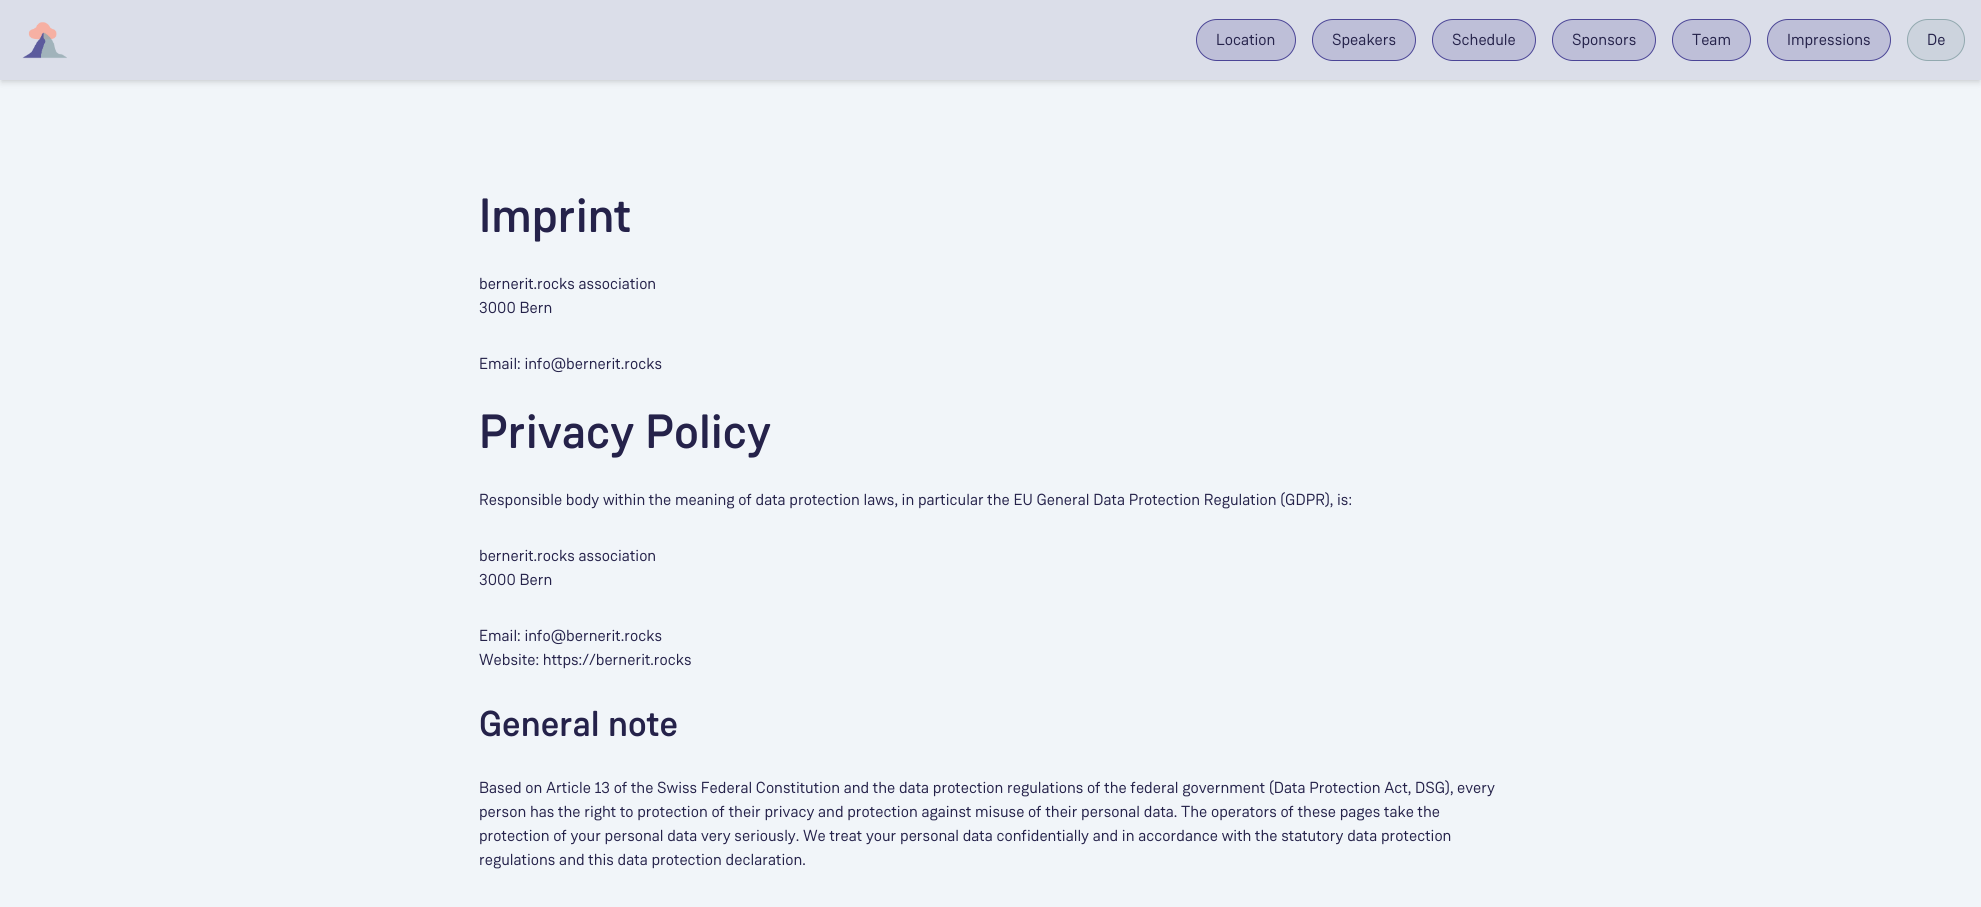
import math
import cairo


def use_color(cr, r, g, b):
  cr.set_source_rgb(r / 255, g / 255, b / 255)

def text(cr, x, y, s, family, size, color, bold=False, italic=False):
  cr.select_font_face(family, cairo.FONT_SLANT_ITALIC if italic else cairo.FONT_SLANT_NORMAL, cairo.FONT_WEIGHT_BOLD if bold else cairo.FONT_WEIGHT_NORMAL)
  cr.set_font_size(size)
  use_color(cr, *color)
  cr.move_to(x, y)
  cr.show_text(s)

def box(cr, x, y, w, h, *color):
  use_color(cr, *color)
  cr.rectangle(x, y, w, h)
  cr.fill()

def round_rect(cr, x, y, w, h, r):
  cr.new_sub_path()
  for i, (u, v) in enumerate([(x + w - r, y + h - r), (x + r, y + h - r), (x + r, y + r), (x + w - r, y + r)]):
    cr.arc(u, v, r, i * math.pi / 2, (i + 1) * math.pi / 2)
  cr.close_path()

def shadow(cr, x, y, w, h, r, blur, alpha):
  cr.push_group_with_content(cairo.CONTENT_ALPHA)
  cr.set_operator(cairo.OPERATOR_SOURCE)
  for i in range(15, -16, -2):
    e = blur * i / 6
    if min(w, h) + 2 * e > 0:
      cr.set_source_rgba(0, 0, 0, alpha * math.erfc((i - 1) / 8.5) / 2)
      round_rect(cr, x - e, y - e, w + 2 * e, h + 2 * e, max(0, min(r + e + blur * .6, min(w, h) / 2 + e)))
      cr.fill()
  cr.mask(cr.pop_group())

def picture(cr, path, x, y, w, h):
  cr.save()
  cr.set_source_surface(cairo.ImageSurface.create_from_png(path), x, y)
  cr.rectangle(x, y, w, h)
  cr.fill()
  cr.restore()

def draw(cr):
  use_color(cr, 241, 245, 249)
  cr.paint()
  use_color(cr, 0, 0, 0)
  shadow(cr, 2, 4, 1977, 76, 0, 2, 0.1)
  shadow(cr, 1, 5, 1979, 78, 0, 3, 0.1)
  box(cr, 0, 0, 1981, 80, 219, 222, 233)
  picture(cr, "img_01.png", 22, 22, 45, 37)
  use_color(cr, 190, 191, 216)
  round_rect(cr, 1196.5, 19.5, 99, 41, 20.5)
  cr.fill_preserve()
  use_color(cr, 75, 69, 150)
  cr.set_line_width(1)
  cr.stroke()
  use_color(cr, 190, 191, 216)
  round_rect(cr, 1312.5, 19.5, 103, 41, 20.5)
  cr.fill_preserve()
  use_color(cr, 75, 69, 150)
  cr.stroke()
  use_color(cr, 190, 191, 216)
  round_rect(cr, 1432.5, 19.5, 103, 41, 20.5)
  cr.fill_preserve()
  use_color(cr, 75, 69, 150)
  cr.stroke()
  use_color(cr, 190, 191, 216)
  round_rect(cr, 1552.5, 19.5, 103, 41, 20.5)
  cr.fill_preserve()
  use_color(cr, 75, 69, 150)
  cr.stroke()
  use_color(cr, 190, 191, 216)
  round_rect(cr, 1672.5, 19.5, 78, 41, 20.5)
  cr.fill_preserve()
  use_color(cr, 75, 69, 150)
  cr.stroke()
  use_color(cr, 190, 191, 216)
  round_rect(cr, 1767.5, 19.5, 123, 41, 20.5)
  cr.fill_preserve()
  use_color(cr, 75, 69, 150)
  cr.stroke()
  use_color(cr, 204, 211, 221)
  round_rect(cr, 1907.5, 19.5, 57, 41, 20.5)
  cr.fill_preserve()
  use_color(cr, 146, 169, 175)
  cr.stroke()
  text(cr, 1216, 45, "Location", "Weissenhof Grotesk", 16, (37, 34, 74))
  text(cr, 1332, 45, "Speakers", "Weissenhof Grotesk", 16, (37, 34, 74))
  text(cr, 1452, 45, "Schedule", "Weissenhof Grotesk", 16, (37, 34, 74))
  text(cr, 1572, 45, "Sponsors", "Weissenhof Grotesk", 16, (37, 34, 74))
  text(cr, 1692, 45, "Team", "Weissenhof Grotesk", 16, (37, 34, 74))
  text(cr, 1787, 45, "Impressions", "Weissenhof Grotesk", 16, (37, 34, 74))
  text(cr, 1927, 45, "De", "Weissenhof Grotesk", 16, (37, 34, 74))
  text(cr, 479, 232, "Imprint", "Weissenhof Grotesk Medium", 48, (37, 34, 74))
  text(cr, 479, 289, "bernerit.rocks association", "Weissenhof Grotesk", 16, (37, 34, 74))
  text(cr, 479, 313, "3000 Bern", "Weissenhof Grotesk", 16, (37, 34, 74))
  text(cr, 479, 369, "Email: info@bernerit.rocks", "Weissenhof Grotesk", 16, (37, 34, 74))
  text(cr, 479, 448, "Privacy Policy", "Weissenhof Grotesk Medium", 48, (37, 34, 74))
  text(cr, 479, 505, "Responsible body within the meaning of data protection laws, in particular the EU General Data Protection Regulation (GDPR), is:", "Weissenhof Grotesk", 16, (37, 34, 74))
  text(cr, 479, 561, "bernerit.rocks association", "Weissenhof Grotesk", 16, (37, 34, 74))
  text(cr, 479, 585, "3000 Bern", "Weissenhof Grotesk", 16, (37, 34, 74))
  text(cr, 479, 641, "Email: info@bernerit.rocks", "Weissenhof Grotesk", 16, (37, 34, 74))
  text(cr, 479, 665, "Website: https://bernerit.rocks", "Weissenhof Grotesk", 16, (37, 34, 74))
  text(cr, 479, 736, "General note", "Weissenhof Grotesk Medium", 36, (37, 34, 74))
  text(cr, 479, 793, "Based on Article 13 of the Swiss Federal Constitution and the data protection regulations of the federal government (Data Protection Act, DSG), every", "Weissenhof Grotesk", 16, (37, 34, 74))
  text(cr, 479, 817, "person has the right to protection of their privacy and protection against misuse of their personal data. The operators of these pages take the", "Weissenhof Grotesk", 16, (37, 34, 74))
  text(cr, 479, 841, "protection of your personal data very seriously. We treat your personal data confidentially and in accordance with the statutory data protection", "Weissenhof Grotesk", 16, (37, 34, 74))
  text(cr, 479, 865, "regulations and this data protection declaration.", "Weissenhof Grotesk", 16, (37, 34, 74))


surface = cairo.ImageSurface(cairo.FORMAT_RGB24, 1981, 907)
cr = cairo.Context(surface)
options = cairo.FontOptions()
options.set_hint_metrics(cairo.HINT_METRICS_OFF)
options.set_hint_style(cairo.HINT_STYLE_NONE)
cr.set_font_options(options)
cr.set_miter_limit(4)
draw(cr)
surface.write_to_png("out.png")
